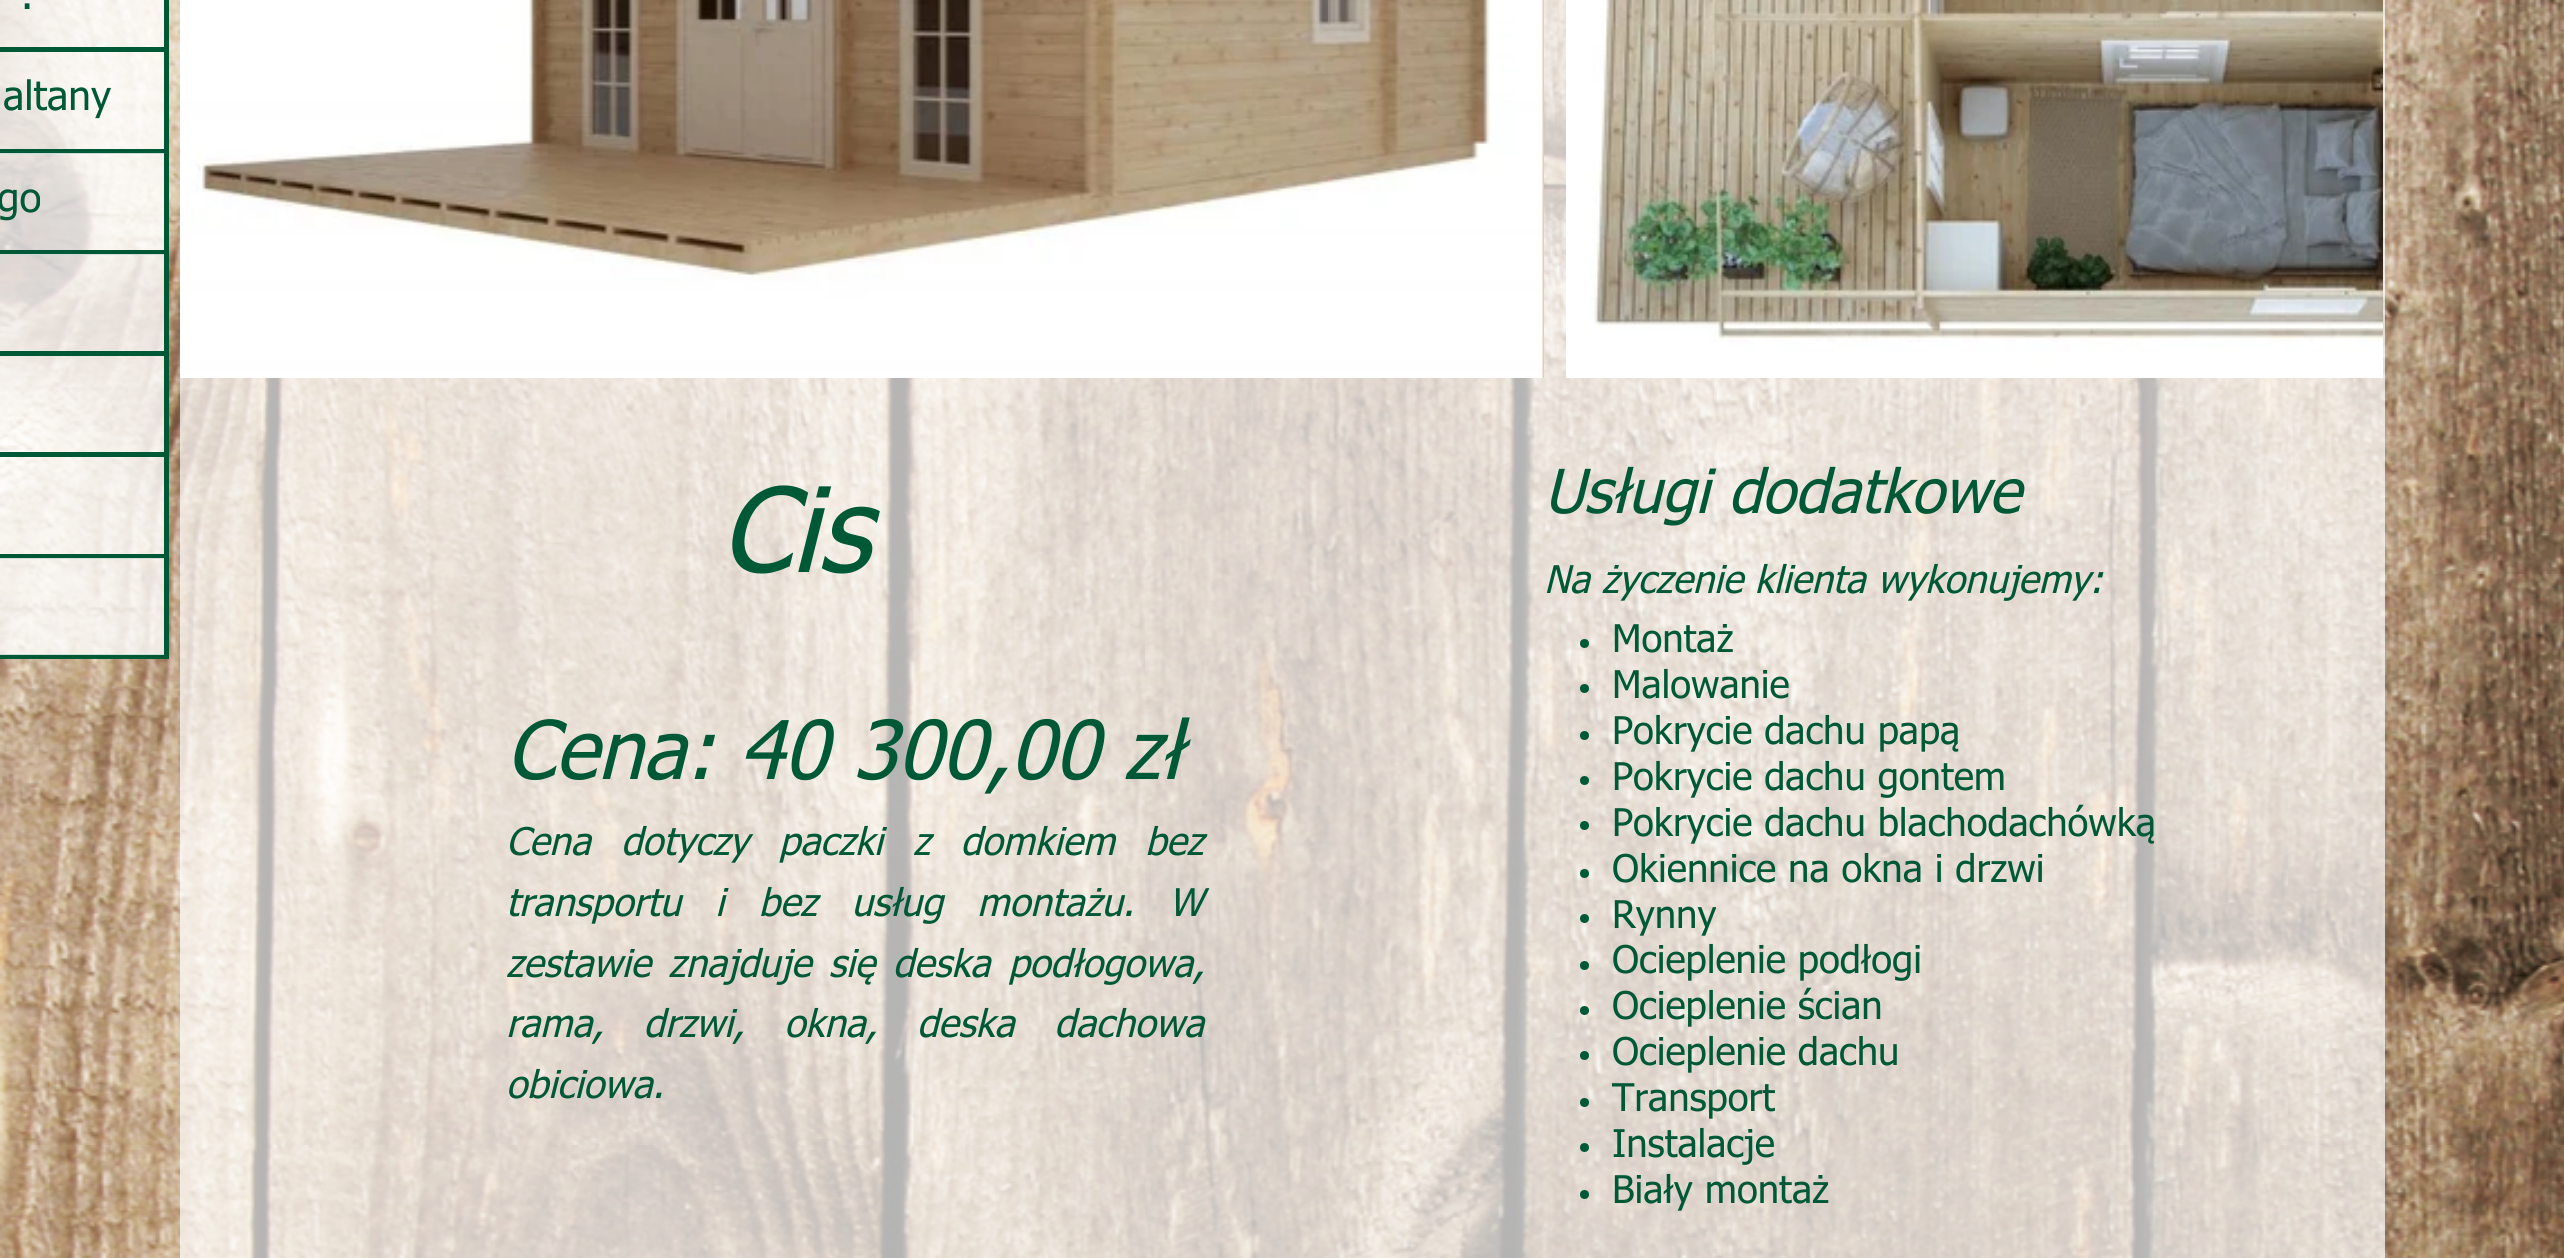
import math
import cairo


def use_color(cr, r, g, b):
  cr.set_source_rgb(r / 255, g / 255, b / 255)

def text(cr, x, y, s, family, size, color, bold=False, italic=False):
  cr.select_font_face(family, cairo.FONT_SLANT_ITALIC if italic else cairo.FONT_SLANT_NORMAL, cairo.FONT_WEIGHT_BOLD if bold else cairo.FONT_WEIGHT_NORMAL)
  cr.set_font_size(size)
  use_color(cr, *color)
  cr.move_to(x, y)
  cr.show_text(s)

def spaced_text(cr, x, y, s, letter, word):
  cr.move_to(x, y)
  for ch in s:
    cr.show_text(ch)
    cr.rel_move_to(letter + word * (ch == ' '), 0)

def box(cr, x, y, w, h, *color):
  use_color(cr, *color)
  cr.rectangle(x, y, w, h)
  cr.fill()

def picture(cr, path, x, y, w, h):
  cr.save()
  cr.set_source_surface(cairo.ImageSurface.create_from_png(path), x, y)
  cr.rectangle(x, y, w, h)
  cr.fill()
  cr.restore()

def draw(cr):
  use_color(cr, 255, 255, 255)
  cr.paint()
  picture(cr, "img_01.png", 0, 0, 2564, 1258)
  cr.rectangle(-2.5, -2.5, 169, 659)
  use_color(cr, 0, 88, 53)
  cr.set_line_width(5)
  cr.stroke()
  box(cr, 0, 47, 164, 5, 0, 89, 54)
  cr.set_source_rgba(1, 1, 1, 0.8)
  cr.rectangle(0, 0, 164, 47)
  cr.fill()
  box(cr, 0, 149, 164, 5, 0, 89, 54)
  cr.set_source_rgba(1, 1, 1, 0.8)
  cr.rectangle(0, 52, 164, 97)
  cr.fill()
  box(cr, 0, 250, 164, 5, 0, 89, 54)
  cr.set_source_rgba(1, 1, 1, 0.8)
  cr.rectangle(0, 153, 164, 97)
  cr.fill()
  box(cr, 0, 351, 164, 5, 0, 89, 54)
  cr.set_source_rgba(1, 1, 1, 0.8)
  cr.rectangle(0, 254, 164, 97)
  cr.fill()
  box(cr, 0, 452, 164, 5, 0, 89, 54)
  cr.set_source_rgba(1, 1, 1, 0.8)
  cr.rectangle(0, 356, 164, 96)
  cr.fill()
  box(cr, 0, 554, 164, 5, 0, 89, 54)
  cr.set_source_rgba(1, 1, 1, 0.8)
  cr.rectangle(0, 457, 164, 97)
  cr.fill()
  cr.rectangle(0, 558, 164, 97)
  cr.fill()
  cr.set_source_rgba(1, 1, 1, 0.7)
  cr.rectangle(180, 0, 2205, 1258)
  cr.fill()
  box(cr, 1542, 0, 2, 378, 201, 157, 91)
  picture(cr, "img_02.png", 180, 0, 1364, 378)
  picture(cr, "img_03.png", 1566, 0, 817, 378)
  use_color(cr, 0, 89, 54)
  cr.arc(1584.5, 643.5, 4.5, 0, 2 * math.pi)
  cr.fill()
  cr.arc(1584.5, 688.5, 4.5, 0, 2 * math.pi)
  cr.fill()
  cr.arc(1584.5, 735.5, 4.5, 0, 2 * math.pi)
  cr.fill()
  cr.arc(1584.5, 780.5, 4.5, 0, 2 * math.pi)
  cr.fill()
  cr.arc(1584.5, 825.5, 4.5, 0, 2 * math.pi)
  cr.fill()
  cr.arc(1584.5, 873.5, 4.5, 0, 2 * math.pi)
  cr.fill()
  cr.arc(1584.5, 918.5, 4.5, 0, 2 * math.pi)
  cr.fill()
  cr.arc(1584.5, 965.5, 4.5, 0, 2 * math.pi)
  cr.fill()
  cr.arc(1584.5, 1010.5, 4.5, 0, 2 * math.pi)
  cr.fill()
  cr.arc(1584.5, 1055.5, 4.5, 0, 2 * math.pi)
  cr.fill()
  cr.arc(1584.5, 1102.5, 4.5, 0, 2 * math.pi)
  cr.fill()
  cr.arc(1584.5, 1147.5, 4.5, 0, 2 * math.pi)
  cr.fill()
  cr.arc(1584.5, 1194.5, 4.5, 0, 2 * math.pi)
  cr.fill()
  text(cr, 21, 9, ".", "tahoma", 40.5, (0, 89, 54))
  text(cr, 3, 110, "altany", "tahoma", 40.5, (0, 89, 54))
  text(cr, -3, 212, "go", "tahoma", 40.5, (0, 89, 54))
  text(cr, 720, 572, "Cis", "tahoma", 117, (0, 89, 54), italic=True)
  text(cr, 1544, 513, "Usługi dodatkowe", "tahoma", 60.75, (0, 89, 54), italic=True)
  text(cr, 1544, 593, "Na życzenie klienta wykonujemy:", "tahoma", 38.25, (0, 89, 54), italic=True)
  text(cr, 1612, 652, "Montaż", "tahoma", 38.25, (0, 89, 54))
  text(cr, 1612, 698, "Malowanie", "tahoma", 38.25, (0, 89, 54))
  text(cr, 1612, 744, "Pokrycie dachu papą", "tahoma", 38.25, (0, 89, 54))
  text(cr, 1612, 790, "Pokrycie dachu gontem", "tahoma", 38.25, (0, 89, 54))
  text(cr, 1612, 836, "Pokrycie dachu blachodachówką", "tahoma", 38.25, (0, 89, 54))
  text(cr, 1612, 882, "Okiennice na okna i drzwi", "tahoma", 38.25, (0, 89, 54))
  text(cr, 1612, 928, "Rynny", "tahoma", 38.25, (0, 89, 54))
  text(cr, 1612, 973, "Ocieplenie podłogi", "tahoma", 38.25, (0, 89, 54))
  text(cr, 1612, 1019, "Ocieplenie ścian", "tahoma", 38.25, (0, 89, 54))
  text(cr, 1612, 1065, "Ocieplenie dachu", "tahoma", 38.25, (0, 89, 54))
  text(cr, 1612, 1111, "Transport", "tahoma", 38.25, (0, 89, 54))
  text(cr, 1612, 1157, "Instalacje", "tahoma", 38.25, (0, 89, 54))
  text(cr, 1612, 1203, "Biały montaż", "tahoma", 38.25, (0, 89, 54))
  text(cr, 506, 779, "Cena: 40 300,00 zł", "tahoma", 81, (0, 89, 54), italic=True)
  cr.set_font_size(38.25)
  spaced_text(cr, 506, 855, "Cena dotyczy paczki z domkiem bez", 0, 18.5)
  spaced_text(cr, 506, 916, "transportu i bez usług montażu. W", 0, 22.5)
  spaced_text(cr, 506, 977, "zestawie znajduje się deska podłogowa,", 0, 6)
  spaced_text(cr, 506, 1037, "rama, drzwi, okna, deska dachowa", 0, 28)
  text(cr, 506, 1098, "obiciowa.", "tahoma", 38.25, (0, 89, 54), italic=True)


surface = cairo.ImageSurface(cairo.FORMAT_RGB24, 2564, 1258)
cr = cairo.Context(surface)
options = cairo.FontOptions()
options.set_hint_metrics(cairo.HINT_METRICS_OFF)
options.set_hint_style(cairo.HINT_STYLE_NONE)
cr.set_font_options(options)
cr.set_miter_limit(4)
draw(cr)
surface.write_to_png("out.png")
